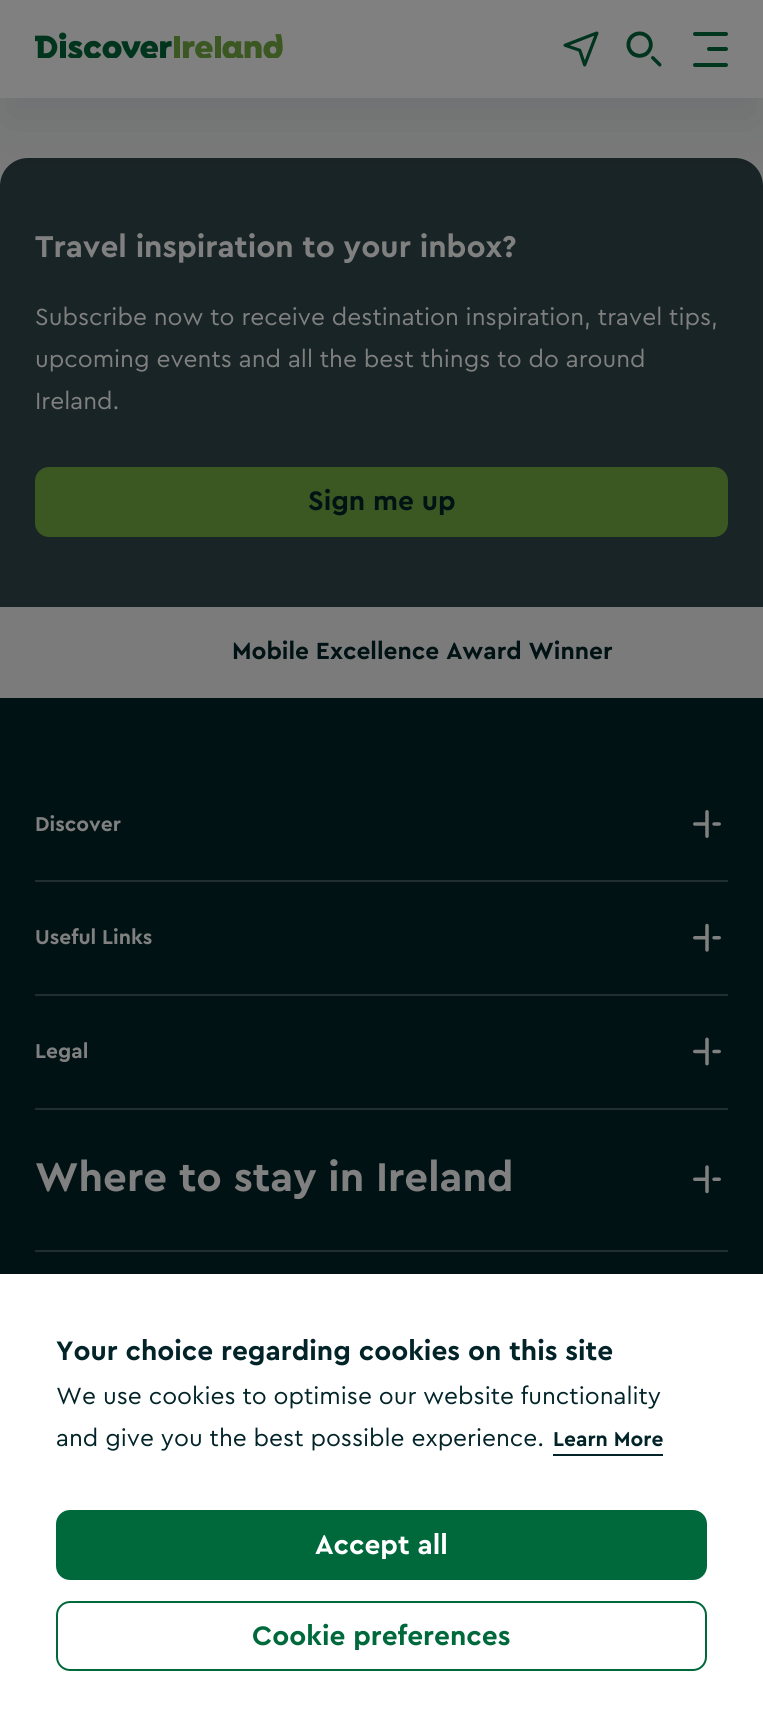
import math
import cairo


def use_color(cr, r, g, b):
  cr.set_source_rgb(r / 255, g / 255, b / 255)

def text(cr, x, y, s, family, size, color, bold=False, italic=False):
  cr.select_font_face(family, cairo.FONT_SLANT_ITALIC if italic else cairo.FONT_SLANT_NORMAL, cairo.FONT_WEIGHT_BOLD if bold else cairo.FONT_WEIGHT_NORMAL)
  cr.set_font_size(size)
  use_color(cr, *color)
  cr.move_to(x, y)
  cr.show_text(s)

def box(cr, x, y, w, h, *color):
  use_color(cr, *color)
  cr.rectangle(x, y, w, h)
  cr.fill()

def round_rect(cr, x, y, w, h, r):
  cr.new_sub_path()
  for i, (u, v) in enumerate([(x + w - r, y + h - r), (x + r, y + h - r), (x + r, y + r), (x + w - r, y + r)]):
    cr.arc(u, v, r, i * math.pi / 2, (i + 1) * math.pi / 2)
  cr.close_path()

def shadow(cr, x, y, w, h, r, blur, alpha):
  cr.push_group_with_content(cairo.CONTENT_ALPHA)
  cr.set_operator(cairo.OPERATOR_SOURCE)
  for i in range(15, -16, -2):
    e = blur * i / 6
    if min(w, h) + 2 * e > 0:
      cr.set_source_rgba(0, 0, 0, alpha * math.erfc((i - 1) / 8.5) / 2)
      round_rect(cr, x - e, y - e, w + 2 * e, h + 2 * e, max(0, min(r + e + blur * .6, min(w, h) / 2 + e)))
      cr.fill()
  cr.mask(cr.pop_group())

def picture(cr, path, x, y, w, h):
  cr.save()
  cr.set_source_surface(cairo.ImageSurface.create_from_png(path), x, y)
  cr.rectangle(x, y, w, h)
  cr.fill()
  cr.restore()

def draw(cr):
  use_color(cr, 123, 123, 123)
  cr.paint()
  use_color(cr, 25, 36, 38)
  cr.new_path()
  cr.move_to(28, 158)
  cr.line_to(735, 158)
  cr.curve_to(750.5, 158, 763, 170.5, 763, 186)
  cr.line_to(763, 607)
  cr.line_to(0, 607)
  cr.line_to(0, 186)
  cr.curve_to(0, 170.5, 12.5, 158, 28, 158)
  cr.close_path()
  cr.fill()
  use_color(cr, 1, 18, 21)
  shadow(cr, 0, 28, 763, 98, 0, 35, 0.1)
  box(cr, 0, 0, 763, 98, 128, 128, 128)
  picture(cr, "img_01.png", 35, 32, 248, 26)
  picture(cr, "img_02.png", 563, 31, 36, 36)
  picture(cr, "img_03.png", 626, 31, 36, 36)
  use_color(cr, 0, 53, 30)
  round_rect(cr, 693, 32, 35, 4, 2)
  cr.fill()
  round_rect(cr, 707, 47, 21, 4, 2)
  cr.fill()
  round_rect(cr, 693, 63, 35, 4, 2)
  cr.fill()
  use_color(cr, 60, 88, 34)
  round_rect(cr, 35, 467, 693, 70, 14)
  cr.fill()
  box(cr, 0, 698, 763, 576, 1, 18, 21)
  box(cr, 35, 880, 693, 2, 33, 46, 48)
  picture(cr, "img_04.png", 693, 810, 28, 28)
  box(cr, 35, 994, 693, 2, 33, 46, 48)
  picture(cr, "img_05.png", 693, 923, 28, 29)
  box(cr, 35, 1108, 693, 2, 33, 46, 48)
  picture(cr, "img_06.png", 693, 1037, 28, 29)
  box(cr, 35, 1250, 693, 2, 33, 46, 48)
  picture(cr, "img_07.png", 693, 1165, 28, 29)
  box(cr, 0, 1274, 763, 453, 255, 255, 255)
  box(cr, 553, 1454, 110, 2, 2, 36, 41)
  use_color(cr, 0, 105, 60)
  round_rect(cr, 56, 1510, 651, 70, 14)
  cr.fill()
  round_rect(cr, 57, 1602, 649, 68, 13)
  cr.stroke()
  text(cr, 35, 257, "Travel inspiration to your inbox?", "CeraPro", 31.5, (128, 128, 128))
  text(cr, 35, 325, "Subscribe now to receive destination inspiration, travel tips,", "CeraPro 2", 24.5, (128, 128, 128))
  text(cr, 35, 367, "upcoming events and all the best things to do around", "CeraPro 2", 24.5, (128, 128, 128))
  text(cr, 35, 409, "Ireland.", "CeraPro 2", 24.5, (128, 128, 128))
  text(cr, 308, 510, "Sign me up", "CeraPro", 28, (1, 18, 21))
  text(cr, 232, 659, "Mobile Excellence Award Winner", "CeraPro", 24.5, (1, 18, 21))
  text(cr, 35, 831, "Discover", "CeraPro", 21, (128, 128, 128))
  text(cr, 35, 944, "Useful Links", "CeraPro", 21, (128, 128, 128))
  text(cr, 35, 1058, "Legal", "CeraPro", 21, (128, 128, 128))
  text(cr, 35, 1191, "Where to stay in Ireland", "CeraPro", 42, (128, 128, 128))
  text(cr, 56, 1360, "Your choice regarding cookies on this site", "CeraPro", 28, (2, 36, 41))
  text(cr, 56, 1404, "We use cookies to optimise our website functionality", "CeraPro 2", 24.5, (2, 36, 41))
  text(cr, 56, 1446, "and give you the best possible experience.", "CeraPro 2", 24.5, (2, 36, 41))
  text(cr, 553, 1446, "Learn More", "CeraPro", 21, (2, 36, 41))
  text(cr, 315, 1554, "Accept all", "CeraPro", 28, (255, 255, 255))
  text(cr, 252, 1645, "Cookie preferences", "CeraPro", 28, (0, 105, 60))


surface = cairo.ImageSurface(cairo.FORMAT_RGB24, 763, 1727)
cr = cairo.Context(surface)
options = cairo.FontOptions()
options.set_hint_metrics(cairo.HINT_METRICS_OFF)
options.set_hint_style(cairo.HINT_STYLE_NONE)
cr.set_font_options(options)
cr.set_miter_limit(4)
draw(cr)
surface.write_to_png("out.png")
